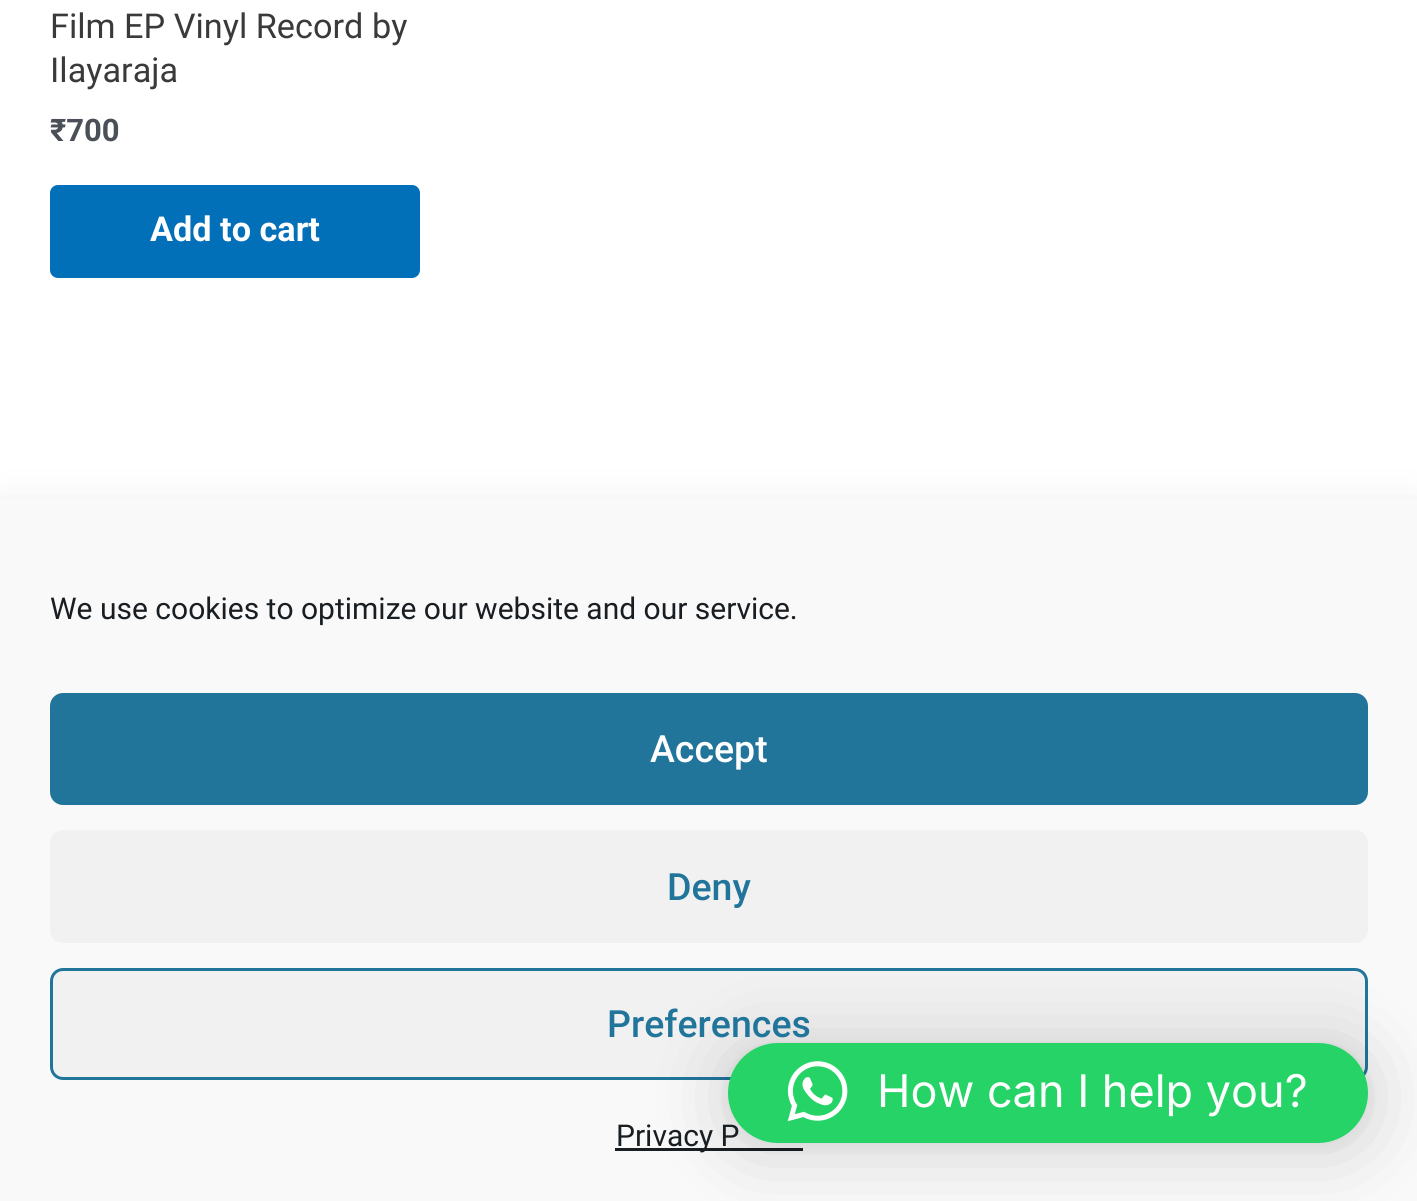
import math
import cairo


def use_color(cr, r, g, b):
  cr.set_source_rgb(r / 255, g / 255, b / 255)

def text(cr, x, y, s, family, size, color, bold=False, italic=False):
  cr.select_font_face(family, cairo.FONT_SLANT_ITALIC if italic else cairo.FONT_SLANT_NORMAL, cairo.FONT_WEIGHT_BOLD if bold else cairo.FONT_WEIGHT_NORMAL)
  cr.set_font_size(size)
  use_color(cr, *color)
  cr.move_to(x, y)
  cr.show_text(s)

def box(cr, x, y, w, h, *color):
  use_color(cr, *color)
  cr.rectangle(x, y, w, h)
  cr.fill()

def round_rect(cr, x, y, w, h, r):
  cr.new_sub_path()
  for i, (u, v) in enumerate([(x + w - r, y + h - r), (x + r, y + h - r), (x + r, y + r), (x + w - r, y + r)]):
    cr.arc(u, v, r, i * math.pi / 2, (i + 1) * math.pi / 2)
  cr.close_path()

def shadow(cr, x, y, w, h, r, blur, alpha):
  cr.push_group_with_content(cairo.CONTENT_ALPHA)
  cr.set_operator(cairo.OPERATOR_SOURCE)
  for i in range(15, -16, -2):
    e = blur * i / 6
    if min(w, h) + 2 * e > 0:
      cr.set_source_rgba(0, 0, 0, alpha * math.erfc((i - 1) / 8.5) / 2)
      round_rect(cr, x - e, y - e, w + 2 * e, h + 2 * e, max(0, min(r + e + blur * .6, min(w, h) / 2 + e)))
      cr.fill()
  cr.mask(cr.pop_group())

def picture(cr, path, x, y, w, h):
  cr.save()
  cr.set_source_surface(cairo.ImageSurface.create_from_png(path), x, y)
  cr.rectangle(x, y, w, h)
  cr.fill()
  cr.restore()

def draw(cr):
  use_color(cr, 255, 255, 255)
  cr.paint()
  use_color(cr, 1, 112, 185)
  round_rect(cr, 50, 185, 370, 93, 8)
  cr.fill()
  use_color(cr, 0, 0, 0)
  shadow(cr, 0, 523, 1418, 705, 0, 25, 0.19)
  box(cr, 0, 500, 1417, 701, 249, 249, 249)
  use_color(cr, 33, 117, 155)
  round_rect(cr, 51.5, 694.5, 1315, 109, 11.5)
  cr.fill_preserve()
  cr.set_line_width(3)
  cr.stroke()
  use_color(cr, 241, 241, 241)
  round_rect(cr, 50, 830, 1318, 113, 13)
  cr.fill()
  round_rect(cr, 51.5, 969.5, 1315, 109, 11.5)
  cr.fill_preserve()
  use_color(cr, 33, 117, 155)
  cr.stroke()
  box(cr, 615, 1148, 188, 3, 25, 30, 35)
  use_color(cr, 0, 0, 0)
  shadow(cr, 728, 1048, 640, 100, 50, 40, 0.16)
  shadow(cr, 728, 1045, 640, 100, 50, 7.5, 0.06)
  text(cr, 50, 38, "Film EP Vinyl Record by", "Roboto", 34.25, (58, 58, 58))
  text(cr, 50, 82, "Ilayaraja", "Roboto", 34.25, (58, 58, 58))
  text(cr, 50, 141, "₹700", "Roboto", 31, (75, 79, 88), bold=True)
  text(cr, 150, 241, "Add to cart", "Roboto", 34.25, (255, 255, 255), bold=True)
  text(cr, 50, 619, "We use cookies to optimize our website and our service.", "Roboto", 30, (25, 30, 35))
  text(cr, 650, 762, "Accept", "Roboto Medium", 37.5, (255, 255, 255))
  text(cr, 667, 900, "Deny", "Roboto Medium", 37.5, (33, 117, 155))
  text(cr, 607, 1037, "Preferences", "Roboto Medium", 37.5, (33, 117, 155))
  text(cr, 616, 1146, "Privacy P", "Roboto", 30, (25, 30, 35))
  use_color(cr, 37, 211, 102)
  round_rect(cr, 728, 1043, 640, 100, 50)
  cr.fill()
  picture(cr, "img_01.png", 787, 1061, 61, 61)
  text(cr, 877, 1107, "How can I help you?", "Inter", 45, (255, 255, 255))


surface = cairo.ImageSurface(cairo.FORMAT_RGB24, 1417, 1201)
cr = cairo.Context(surface)
options = cairo.FontOptions()
options.set_hint_metrics(cairo.HINT_METRICS_OFF)
options.set_hint_style(cairo.HINT_STYLE_NONE)
cr.set_font_options(options)
cr.set_miter_limit(4)
draw(cr)
surface.write_to_png("out.png")
